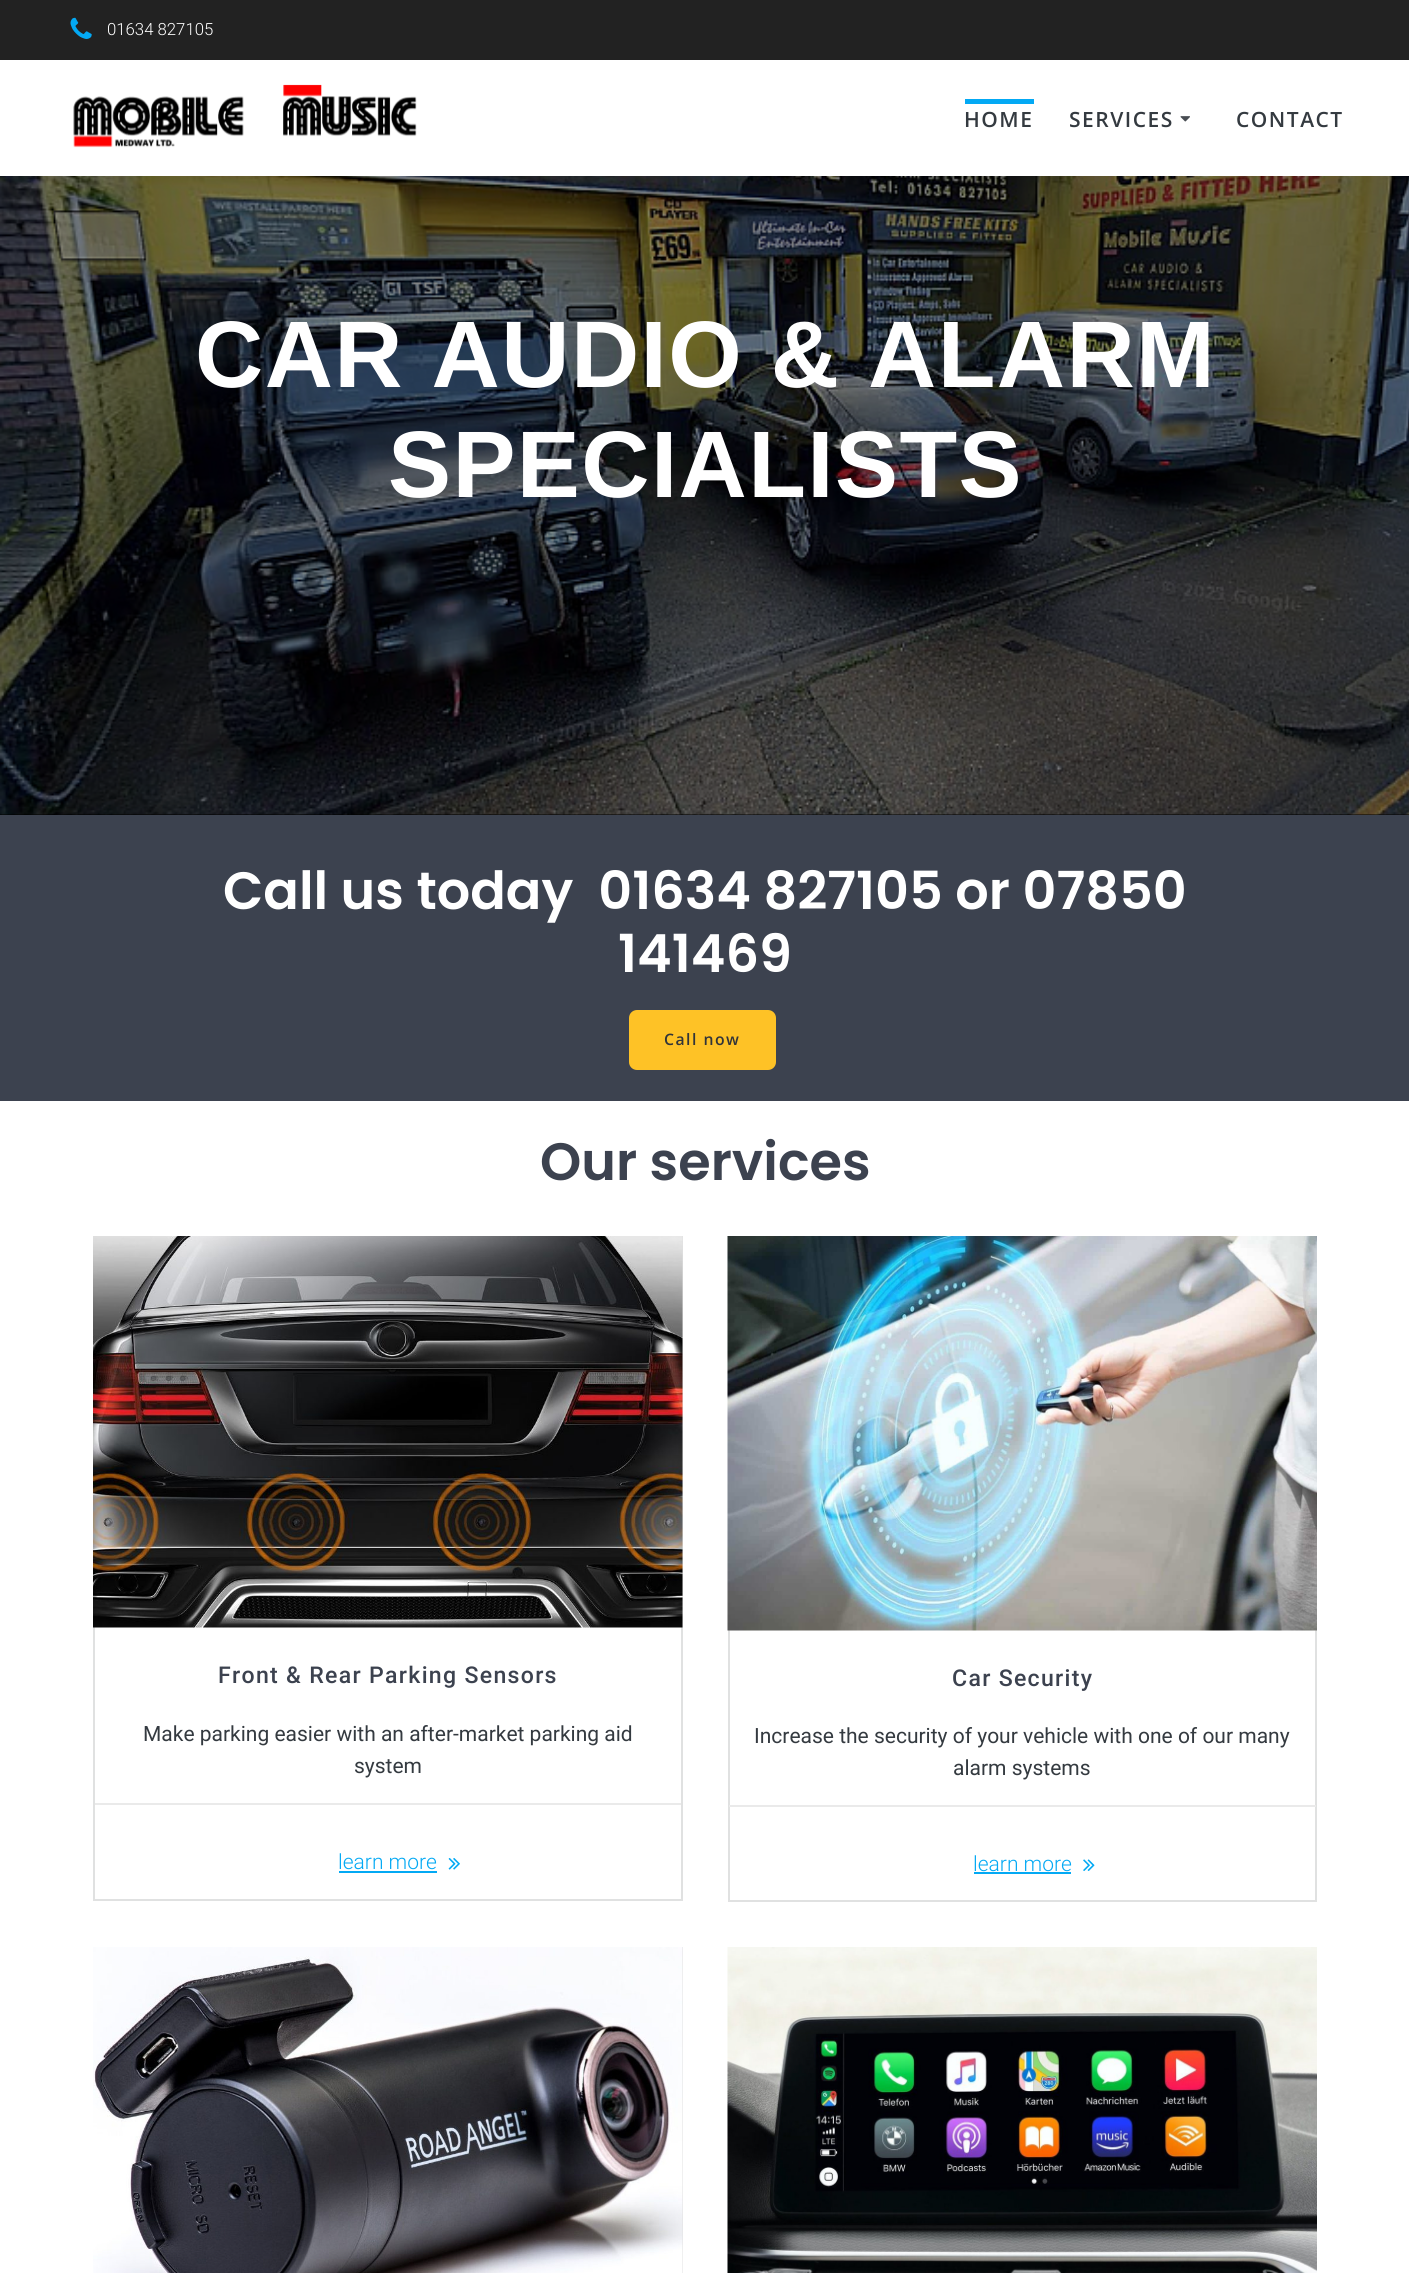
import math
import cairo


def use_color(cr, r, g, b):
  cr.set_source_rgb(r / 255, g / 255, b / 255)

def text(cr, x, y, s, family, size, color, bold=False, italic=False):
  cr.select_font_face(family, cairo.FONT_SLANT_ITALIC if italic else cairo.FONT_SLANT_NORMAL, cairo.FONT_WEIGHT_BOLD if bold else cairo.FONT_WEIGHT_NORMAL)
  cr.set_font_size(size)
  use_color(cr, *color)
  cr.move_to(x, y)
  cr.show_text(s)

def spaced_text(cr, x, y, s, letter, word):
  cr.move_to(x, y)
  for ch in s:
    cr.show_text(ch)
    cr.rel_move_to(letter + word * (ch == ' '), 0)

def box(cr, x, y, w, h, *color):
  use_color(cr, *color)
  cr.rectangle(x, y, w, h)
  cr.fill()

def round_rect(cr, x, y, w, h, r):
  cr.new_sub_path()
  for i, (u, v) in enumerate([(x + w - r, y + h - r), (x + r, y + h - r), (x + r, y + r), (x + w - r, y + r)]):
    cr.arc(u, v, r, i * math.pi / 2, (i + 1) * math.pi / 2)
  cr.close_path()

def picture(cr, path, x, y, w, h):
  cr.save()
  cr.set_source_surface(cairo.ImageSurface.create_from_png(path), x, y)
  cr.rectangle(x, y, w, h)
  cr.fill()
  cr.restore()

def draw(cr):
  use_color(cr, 255, 255, 255)
  cr.paint()
  box(cr, 0, 0, 1409, 60, 34, 34, 34)
  picture(cr, "img_01.png", 70, 17, 22, 22)
  picture(cr, "img_02.png", 73, 84, 344, 64)
  box(cr, 965, 99, 69, 5, 3, 169, 244)
  picture(cr, "img_03.png", 1180, 116, 10, 6)
  box(cr, 0, 814, 1409, 1, 1, 1, 1)
  picture(cr, "img_04.png", 0, 176, 1409, 639)
  box(cr, 0, 815, 1409, 286, 60, 66, 79)
  use_color(cr, 254, 194, 38)
  round_rect(cr, 630.5, 1011.5, 144, 57, 6.5)
  cr.fill_preserve()
  cr.set_line_width(3)
  cr.stroke()
  cr.rectangle(94, 1237, 588, 663)
  use_color(cr, 224, 225, 225)
  cr.set_line_width(2)
  cr.stroke()
  picture(cr, "img_05.png", 93, 1236, 590, 392)
  box(cr, 95, 1803, 586, 2, 234, 234, 234)
  box(cr, 339, 1871, 98, 2, 3, 169, 244)
  picture(cr, "img_06.png", 448, 1858, 12, 12)
  cr.rectangle(729, 1237, 587, 664)
  use_color(cr, 224, 225, 225)
  cr.stroke()
  picture(cr, "img_07.png", 727, 1236, 590, 395)
  box(cr, 729, 1805, 587, 2, 234, 234, 234)
  box(cr, 974, 1872, 97, 2, 3, 169, 244)
  picture(cr, "img_08.png", 1083, 1859, 12, 12)
  cr.rectangle(94, 1948, 588, 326)
  use_color(cr, 224, 225, 225)
  cr.stroke()
  picture(cr, "img_09.png", 93, 1947, 590, 326)
  picture(cr, "img_10.png", 727, 1947, 590, 326)
  text(cr, 107, 35, "01634 827105", "Roboto Light", 16.75, (255, 255, 255))
  cr.select_font_face("Open Sans SemiBold")
  cr.set_font_size(21)
  use_color(cr, 52, 58, 64)
  spaced_text(cr, 964, 127, "HOME", 1.5, 0)
  spaced_text(cr, 1069, 127, "SERVICES", 1.5, 0)
  spaced_text(cr, 1236, 127, "CONTACT", 1.5, 0)
  cr.select_font_face("Liberation Sans", cairo.FONT_SLANT_NORMAL, cairo.FONT_WEIGHT_BOLD)
  cr.set_font_size(94.5)
  use_color(cr, 255, 255, 255)
  spaced_text(cr, 195, 387, "CAR AUDIO & ALARM", 1.4, 0)
  spaced_text(cr, 388, 497, "SPECIALISTS", 1.4, 0)
  text(cr, 223, 909, "Call us today  01634 827105 or 07850", "Poppins SemiBold", 52.5, (255, 255, 255))
  text(cr, 618, 972, "141469", "Poppins SemiBold", 52.5, (255, 255, 255))
  cr.select_font_face("Open Sans SemiBold")
  cr.set_font_size(15.75)
  use_color(cr, 49, 52, 57)
  spaced_text(cr, 664, 1045, "Call now", 1.5, 0)
  text(cr, 540, 1180, "Our services", "Poppins SemiBold", 52.5, (60, 66, 79))
  cr.select_font_face("Roboto Medium")
  cr.set_font_size(23.1)
  spaced_text(cr, 218, 1683, "Front & Rear Parking Sensors", 1.3, 0)
  text(cr, 143, 1741, "Make parking easier with an after-market parking aid", "Roboto", 21, (52, 58, 64))
  text(cr, 354, 1773, "system", "Roboto", 21, (52, 58, 64))
  text(cr, 338, 1869, "learn more", "Roboto Light", 21, (3, 169, 244))
  cr.select_font_face("Roboto Medium")
  cr.set_font_size(23.1)
  use_color(cr, 60, 66, 79)
  spaced_text(cr, 952, 1686, "Car Security", 1.3, 0)
  text(cr, 754, 1743, "Increase the security of your vehicle with one of our many", "Roboto", 21, (52, 58, 64))
  text(cr, 953, 1775, "alarm systems", "Roboto", 21, (52, 58, 64))
  text(cr, 973, 1871, "learn more", "Roboto Light", 21, (3, 169, 244))


surface = cairo.ImageSurface(cairo.FORMAT_RGB24, 1409, 2273)
cr = cairo.Context(surface)
options = cairo.FontOptions()
options.set_hint_metrics(cairo.HINT_METRICS_OFF)
options.set_hint_style(cairo.HINT_STYLE_NONE)
cr.set_font_options(options)
cr.set_miter_limit(4)
draw(cr)
surface.write_to_png("out.png")
